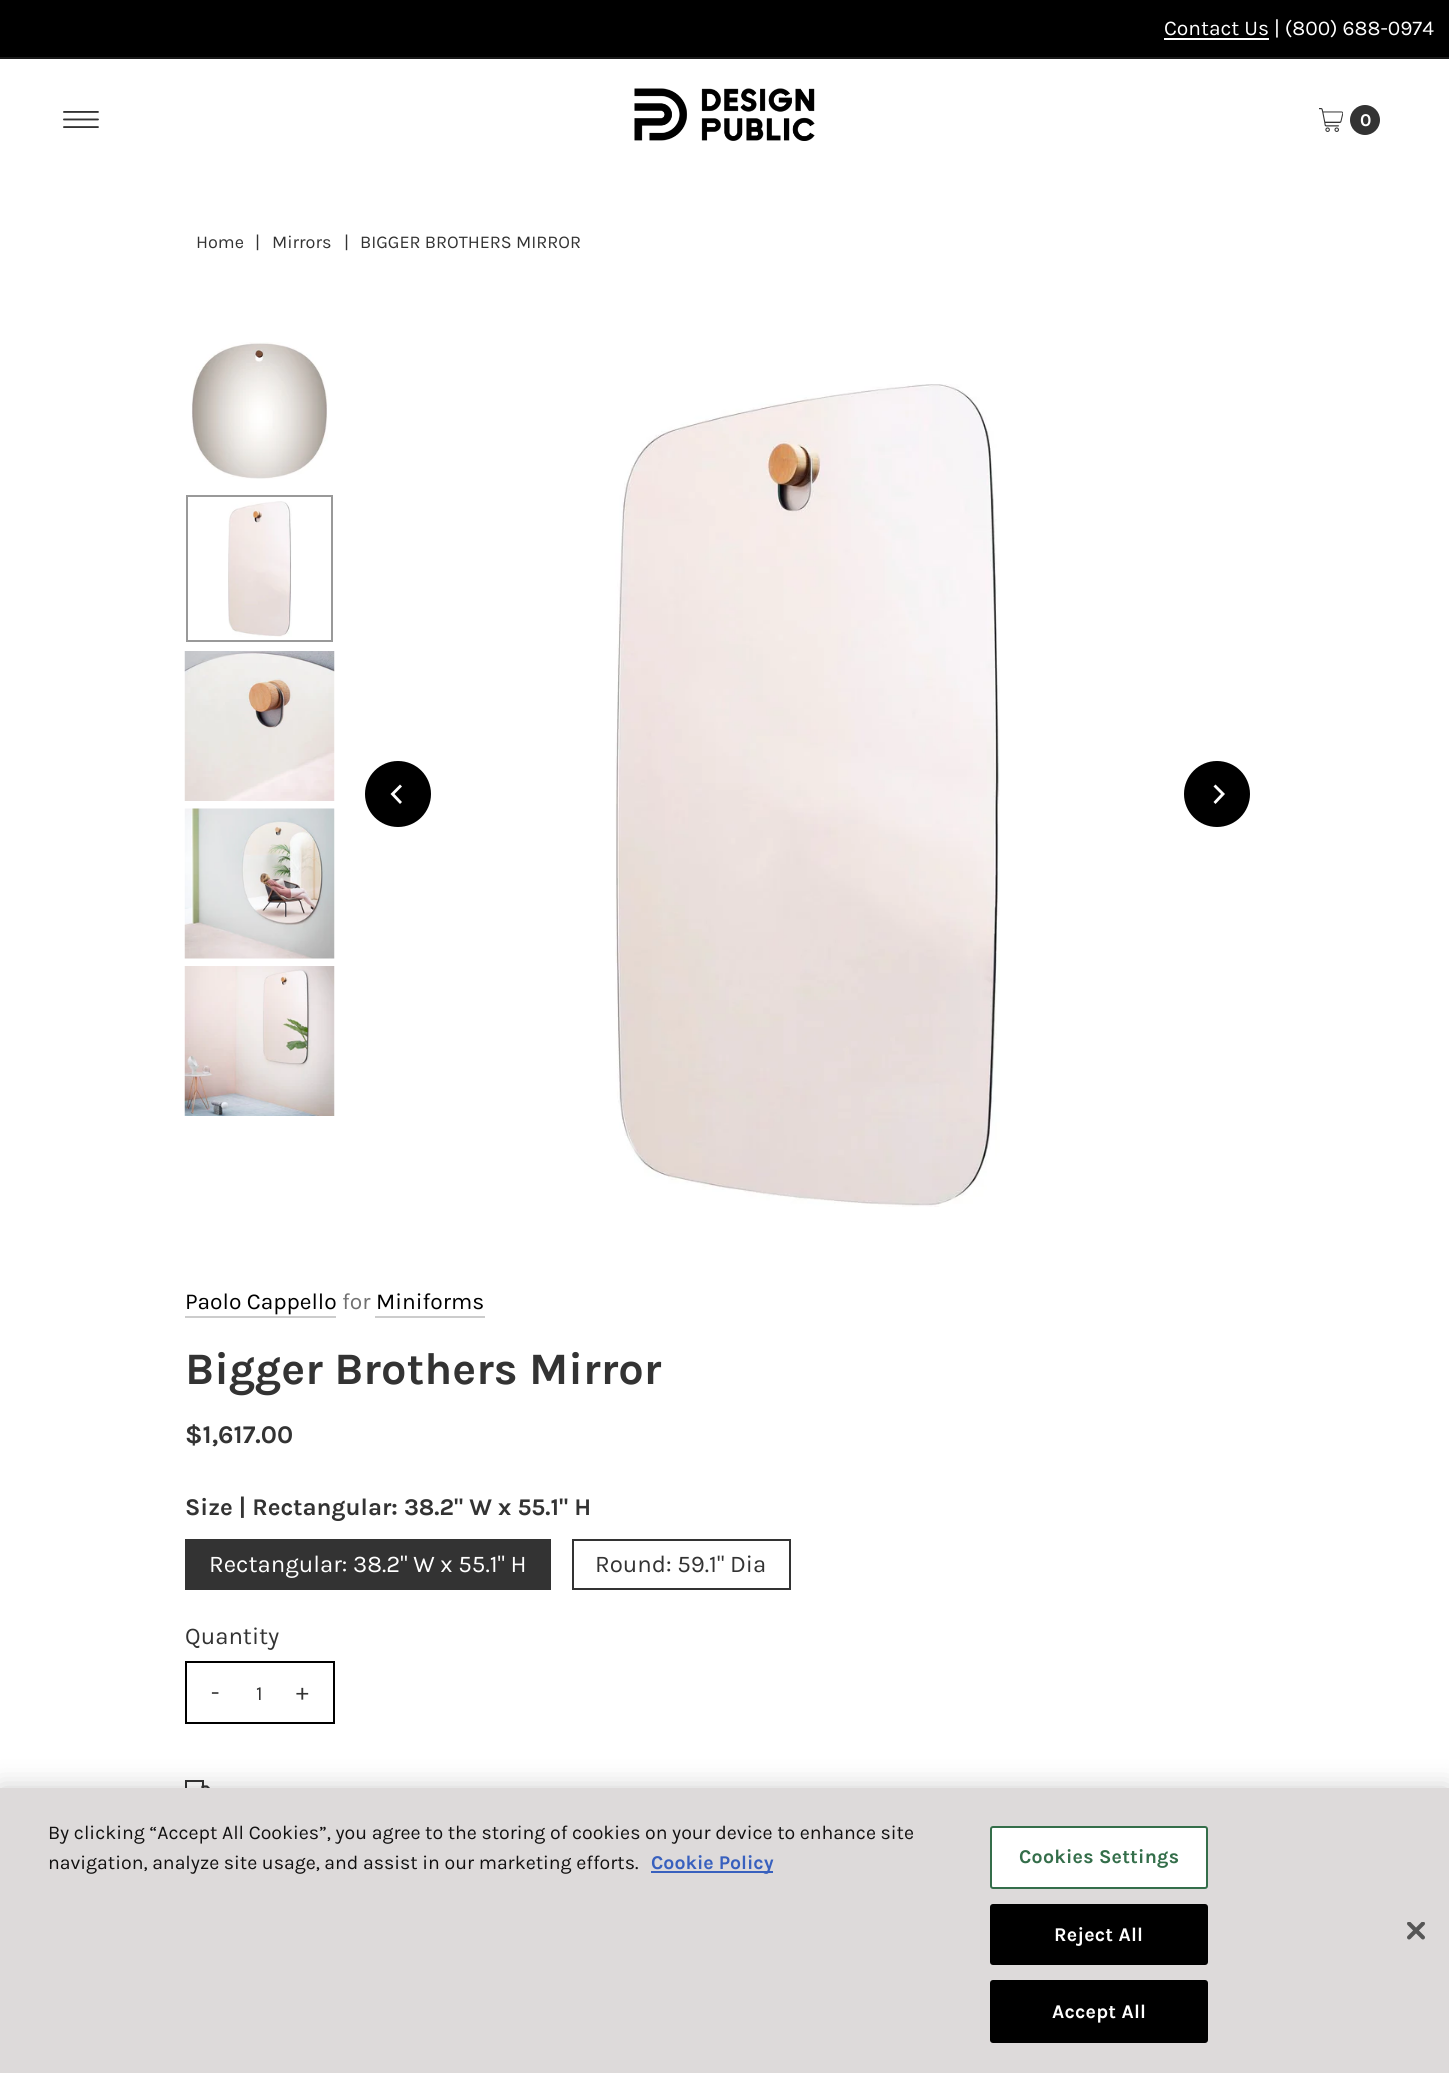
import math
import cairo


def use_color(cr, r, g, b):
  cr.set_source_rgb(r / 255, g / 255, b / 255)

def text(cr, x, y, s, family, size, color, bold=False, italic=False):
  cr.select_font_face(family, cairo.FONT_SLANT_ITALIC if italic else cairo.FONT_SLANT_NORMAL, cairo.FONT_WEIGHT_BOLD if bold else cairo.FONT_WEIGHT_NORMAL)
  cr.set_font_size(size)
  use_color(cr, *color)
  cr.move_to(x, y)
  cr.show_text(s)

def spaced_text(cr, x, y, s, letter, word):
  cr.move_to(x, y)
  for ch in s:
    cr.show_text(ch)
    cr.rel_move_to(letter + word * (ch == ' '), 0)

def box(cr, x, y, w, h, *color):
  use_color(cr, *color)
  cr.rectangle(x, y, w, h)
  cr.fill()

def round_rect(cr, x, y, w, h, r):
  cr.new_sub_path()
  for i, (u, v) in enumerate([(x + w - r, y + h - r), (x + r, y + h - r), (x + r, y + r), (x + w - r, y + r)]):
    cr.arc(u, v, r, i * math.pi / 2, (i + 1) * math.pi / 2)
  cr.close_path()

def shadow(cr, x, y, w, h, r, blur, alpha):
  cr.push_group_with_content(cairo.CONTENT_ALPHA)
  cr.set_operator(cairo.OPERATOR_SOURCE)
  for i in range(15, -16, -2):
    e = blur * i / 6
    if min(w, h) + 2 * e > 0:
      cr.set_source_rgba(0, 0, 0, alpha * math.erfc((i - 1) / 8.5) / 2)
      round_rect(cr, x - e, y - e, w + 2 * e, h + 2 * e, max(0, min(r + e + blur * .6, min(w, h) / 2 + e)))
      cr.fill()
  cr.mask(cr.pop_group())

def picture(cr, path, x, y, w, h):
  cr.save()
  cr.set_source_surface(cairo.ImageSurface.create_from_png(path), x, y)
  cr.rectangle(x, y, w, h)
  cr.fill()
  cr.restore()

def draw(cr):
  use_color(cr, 255, 255, 255)
  cr.paint()
  box(cr, 0, 0, 1449, 57, 0, 0, 0)
  box(cr, 1164, 38, 105, 2, 255, 255, 255)
  box(cr, 0, 57, 1449, 2, 26, 26, 26)
  picture(cr, "img_01.png", 63, 111, 36, 17)
  picture(cr, "img_02.png", 634, 88, 181, 53)
  picture(cr, "img_03.png", 1319, 108, 24, 24)
  use_color(cr, 51, 51, 51)
  cr.arc(1365, 120, 15, 0, 2 * math.pi)
  cr.fill()
  picture(cr, "img_04.png", 191, 342, 137, 137)
  picture(cr, "img_05.png", 228, 501, 64, 136)
  cr.rectangle(187, 496, 145, 145)
  use_color(cr, 153, 153, 153)
  cr.stroke()
  picture(cr, "img_06.png", 184, 651, 151, 150)
  picture(cr, "img_07.png", 184, 808, 151, 151)
  picture(cr, "img_08.png", 184, 966, 151, 150)
  use_color(cr, 0, 0, 0)
  cr.arc(398, 794, 33, 0, 2 * math.pi)
  cr.fill()
  use_color(cr, 255, 255, 255)
  cr.new_path()
  cr.move_to(390.5, 794)
  cr.line_to(400, 804)
  cr.line_to(402, 802)
  cr.line_to(394.5, 794)
  cr.line_to(402, 786.5)
  cr.line_to(400, 784.5)
  cr.close_path()
  cr.fill()
  picture(cr, "img_09.png", 615, 384, 385, 823)
  use_color(cr, 0, 0, 0)
  cr.arc(1217, 794, 33, 0, 2 * math.pi)
  cr.fill()
  use_color(cr, 255, 255, 255)
  cr.new_path()
  cr.move_to(1225, 794)
  cr.line_to(1215.5, 784.5)
  cr.line_to(1213.5, 786.5)
  cr.line_to(1221, 794)
  cr.line_to(1213.5, 802)
  cr.line_to(1215.5, 804)
  cr.close_path()
  cr.fill()
  box(cr, 185, 1316, 151, 2, 204, 204, 204)
  box(cr, 375, 1316, 110, 2, 204, 204, 204)
  box(cr, 185, 1539, 366, 51, 51, 51, 51)
  cr.rectangle(573, 1540, 217, 49)
  cr.stroke()
  cr.rectangle(186, 1662, 148, 61)
  use_color(cr, 0, 0, 0)
  cr.stroke()
  cr.rectangle(186, 1781, 17, 15)
  use_color(cr, 51, 51, 51)
  cr.stroke()
  cr.new_path()
  cr.move_to(202.5, 1786.5)
  cr.line_to(207, 1786.5)
  cr.line_to(210.5, 1790)
  cr.line_to(210.5, 1795.5)
  cr.line_to(202.5, 1795.5)
  cr.close_path()
  cr.set_line_width(2.2)
  cr.set_line_cap(cairo.LINE_CAP_ROUND)
  cr.set_line_join(cairo.LINE_JOIN_ROUND)
  cr.stroke()
  use_color(cr, 0, 0, 0)
  shadow(cr, 0, 1788, 1449, 285, 0, 13.5, 0.2)
  box(cr, 0, 1788, 1449, 285, 221, 218, 218)
  box(cr, 651, 1871, 122, 2, 56, 96, 190)
  use_color(cr, 255, 255, 255)
  round_rect(cr, 991, 1827, 216, 61, 2)
  cr.fill_preserve()
  use_color(cr, 52, 110, 74)
  cr.set_line_width(2)
  cr.set_line_cap(cairo.LINE_CAP_BUTT)
  cr.set_line_join(cairo.LINE_JOIN_MITER)
  cr.stroke()
  use_color(cr, 0, 0, 0)
  round_rect(cr, 991, 1905, 216, 59, 2)
  cr.fill_preserve()
  cr.stroke()
  round_rect(cr, 991, 1981, 216, 61, 2)
  cr.fill_preserve()
  cr.stroke()
  picture(cr, "img_10.png", 1407, 1922, 18, 18)
  text(cr, 1164, 35, "Contact Us | (800) 688-0974", "Karla", 21, (255, 255, 255))
  text(cr, 1360, 126, "0", "Karla", 18, (255, 255, 255), bold=True)
  text(cr, 196, 248, "Home", "Karla", 18, (51, 51, 51))
  text(cr, 255, 248, "|", "Karla", 18, (51, 51, 51))
  text(cr, 272, 248, "Mirrors", "Karla", 18, (51, 51, 51))
  text(cr, 344, 248, "|", "Karla", 18, (51, 51, 51))
  text(cr, 360, 248, "BIGGER BROTHERS MIRROR", "Karla", 18, (51, 51, 51))
  text(cr, 185, 1309, "Paolo Cappello", "Karla", 22.75, (0, 0, 0))
  text(cr, 342, 1309, "for", "Karla", 22.75, (112, 112, 112))
  text(cr, 376, 1309, "Miniforms", "Karla", 22.75, (0, 0, 0))
  text(cr, 185, 1384, "Bigger Brothers Mirror", "Karla", 45, (51, 51, 51), bold=True)
  text(cr, 185, 1443, "$1,617.00", "Karla", 25.5, (51, 51, 51), bold=True)
  text(cr, 185, 1515, "Size | Rectangular: 38.2\" W x 55.1\" H", "Karla", 24, (51, 51, 51), bold=True)
  text(cr, 209, 1572, "Rectangular: 38.2\" W x 55.1\" H", "Karla", 24, (255, 255, 255))
  text(cr, 595, 1572, "Round: 59.1\" Dia", "Karla", 24, (51, 51, 51))
  text(cr, 185, 1644, "Quantity", "Karla", 24, (51, 51, 51))
  spaced_text(cr, 211, 1700, "-", 2, 0)
  text(cr, 256, 1700, "1", "Karla", 20, (51, 51, 51))
  cr.set_font_size(24)
  spaced_text(cr, 296, 1700, "+", 2, 0)
  text(cr, 48, 1839, "By clicking “Accept All Cookies”, you agree to the storing of cookies on your device to enhance site", "Karla", 19.5, (18, 17, 17))
  text(cr, 48, 1869, "navigation, analyze site usage, and assist in our marketing efforts.", "Karla", 19.5, (18, 17, 17))
  text(cr, 651, 1869, "Cookie Policy", "Karla", 19.5, (56, 96, 190), bold=True)
  use_color(cr, 52, 110, 74)
  spaced_text(cr, 1019, 1863, "Cookies Settings", 0.25, 0)
  use_color(cr, 255, 255, 255)
  spaced_text(cr, 1054, 1941, "Reject All", 0.25, 0)
  spaced_text(cr, 1052, 2018, "Accept All", 0.25, 0)


surface = cairo.ImageSurface(cairo.FORMAT_RGB24, 1449, 2073)
cr = cairo.Context(surface)
options = cairo.FontOptions()
options.set_hint_metrics(cairo.HINT_METRICS_OFF)
options.set_hint_style(cairo.HINT_STYLE_NONE)
cr.set_font_options(options)
cr.set_miter_limit(4)
draw(cr)
surface.write_to_png("out.png")
